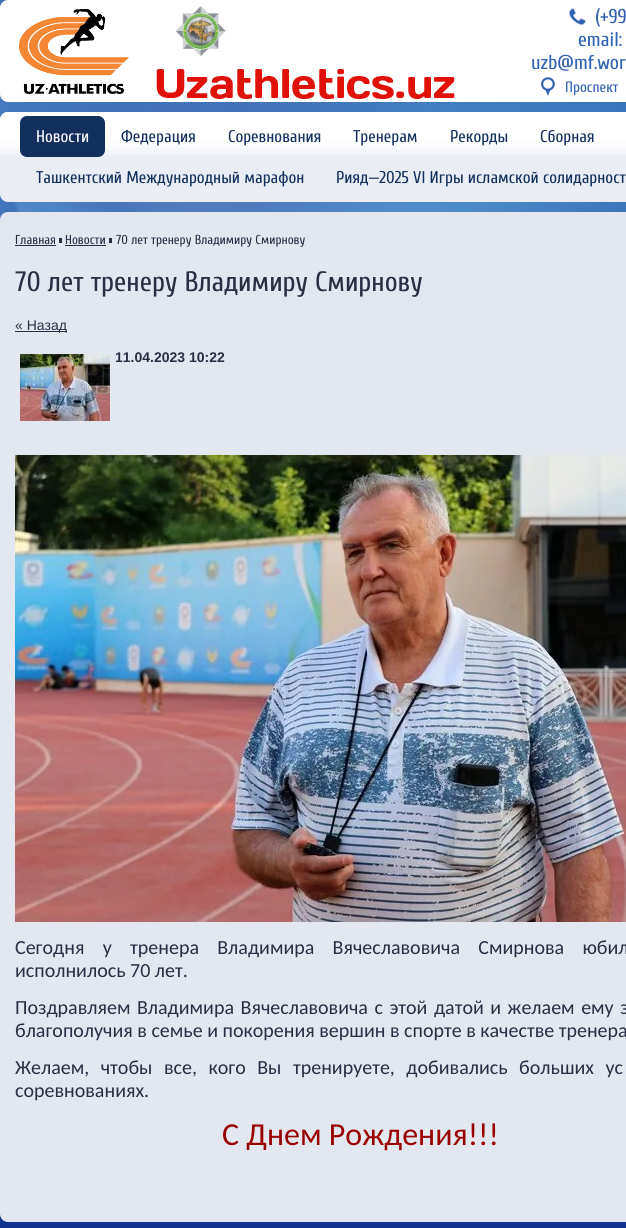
import math
import cairo


def use_color(cr, r, g, b):
  cr.set_source_rgb(r / 255, g / 255, b / 255)

def text(cr, x, y, s, family, size, color, bold=False, italic=False):
  cr.select_font_face(family, cairo.FONT_SLANT_ITALIC if italic else cairo.FONT_SLANT_NORMAL, cairo.FONT_WEIGHT_BOLD if bold else cairo.FONT_WEIGHT_NORMAL)
  cr.set_font_size(size)
  use_color(cr, *color)
  cr.move_to(x, y)
  cr.show_text(s)

def spaced_text(cr, x, y, s, letter, word):
  cr.move_to(x, y)
  for ch in s:
    cr.show_text(ch)
    cr.rel_move_to(letter + word * (ch == ' '), 0)

def box(cr, x, y, w, h, *color):
  use_color(cr, *color)
  cr.rectangle(x, y, w, h)
  cr.fill()

def round_rect(cr, x, y, w, h, r):
  cr.new_sub_path()
  for i, (u, v) in enumerate([(x + w - r, y + h - r), (x + r, y + h - r), (x + r, y + r), (x + w - r, y + r)]):
    cr.arc(u, v, r, i * math.pi / 2, (i + 1) * math.pi / 2)
  cr.close_path()

def picture(cr, path, x, y, w, h):
  cr.save()
  cr.set_source_surface(cairo.ImageSurface.create_from_png(path), x, y)
  cr.rectangle(x, y, w, h)
  cr.fill()
  cr.restore()

def draw(cr):
  use_color(cr, 255, 255, 255)
  cr.paint()
  picture(cr, "img_01.png", 0, 0, 626, 220)
  picture(cr, "img_02.png", 0, 1214, 626, 14)
  use_color(cr, 255, 255, 255)
  round_rect(cr, 0, 0, 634, 102, 8)
  cr.fill()
  picture(cr, "img_03.png", 19, 9, 110, 85)
  picture(cr, "img_04.png", 175, 6, 51, 50)
  picture(cr, "img_05.png", 156, 69, 299, 30)
  picture(cr, "img_06.png", 569, 8, 17, 17)
  picture(cr, "img_07.png", 541, 77, 14, 19)
  use_color(cr, 234, 238, 244)
  round_rect(cr, 0, 112, 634, 90, 8)
  cr.fill()
  picture(cr, "img_08.png", 0, 112, 626, 43)
  use_color(cr, 19, 47, 94)
  round_rect(cr, 20, 116, 85, 41, 7)
  cr.fill()
  use_color(cr, 227, 232, 240)
  round_rect(cr, 0, 212, 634, 1010, 8)
  cr.fill()
  box(cr, 15, 245, 41, 1, 40, 47, 67)
  box(cr, 59, 238, 3, 5, 40, 47, 67)
  box(cr, 65, 245, 41, 1, 40, 47, 67)
  box(cr, 109, 238, 3, 5, 40, 47, 67)
  box(cr, 15, 331, 52, 1, 40, 47, 67)
  picture(cr, "img_09.png", 20, 354, 90, 67)
  picture(cr, "img_10.png", 15, 455, 611, 467)
  text(cr, 595, 23, "(+99", "Cuprum", 20, (48, 97, 178))
  text(cr, 578, 46, "email:", "Cuprum", 20, (48, 97, 178))
  text(cr, 531, 69, "uzb@mf.wor", "Cuprum", 20, (48, 97, 178))
  text(cr, 565, 92, "Проспект", "Cuprum", 15, (48, 97, 178))
  text(cr, 36, 142, "Новости", "Cuprum", 17, (255, 255, 255))
  text(cr, 121, 142, "Федерация", "Cuprum", 17, (19, 47, 94))
  text(cr, 228, 142, "Соревнования", "Cuprum", 17, (19, 47, 94))
  text(cr, 353, 142, "Тренерам", "Cuprum", 17, (19, 47, 94))
  text(cr, 450, 142, "Рекорды", "Cuprum", 17, (19, 47, 94))
  text(cr, 540, 142, "Сборная", "Cuprum", 17, (19, 47, 94))
  text(cr, 36, 183, "Ташкентский Международный марафон", "Cuprum", 17, (19, 47, 94))
  text(cr, 336, 183, "Рияд—2025 VI Игры исламской солидарност", "Cuprum", 17, (19, 47, 94))
  text(cr, 15, 244, "Главная", "Cuprum", 13, (40, 47, 67))
  text(cr, 65, 244, "Новости", "Cuprum", 13, (40, 47, 67))
  text(cr, 116, 244, "70 лет тренеру Владимиру Смирнову", "Cuprum", 13, (40, 47, 67))
  text(cr, 15, 291, "70 лет тренеру Владимиру Смирнову", "Cuprum", 28, (40, 47, 67))
  text(cr, 15, 330, "« Назад", "Liberation Sans", 14, (40, 47, 67))
  text(cr, 115, 362, "11.04.2023 10:22", "Liberation Sans", 14, (40, 47, 67), bold=True)
  cr.select_font_face("Carlito")
  cr.set_font_size(20)
  spaced_text(cr, 15, 954, "Сегодня у тренера Владимира Вячеславовича Смирнова юбил", 0, 13.75)
  text(cr, 15, 977, "исполнилось 70 лет.", "Carlito", 20, (40, 47, 67))
  spaced_text(cr, 15, 1014, "Поздравляем Владимира Вячеславовича с этой датой и желаем ему з", 0, 2)
  text(cr, 15, 1037, "благополучия в семье и покорения вершин в спорте в качестве тренера", "Carlito", 20, (40, 47, 67))
  spaced_text(cr, 15, 1074, "Желаем, чтобы все, кого Вы тренируете, добивались больших ус", 0, 7)
  text(cr, 15, 1097, "соревнованиях.", "Carlito", 20, (40, 47, 67))
  text(cr, 222, 1145, "С Днем Рождения!!!", "Carlito", 32, (153, 0, 0))


surface = cairo.ImageSurface(cairo.FORMAT_RGB24, 626, 1228)
cr = cairo.Context(surface)
options = cairo.FontOptions()
options.set_hint_metrics(cairo.HINT_METRICS_OFF)
options.set_hint_style(cairo.HINT_STYLE_NONE)
cr.set_font_options(options)
cr.set_miter_limit(4)
draw(cr)
surface.write_to_png("out.png")
